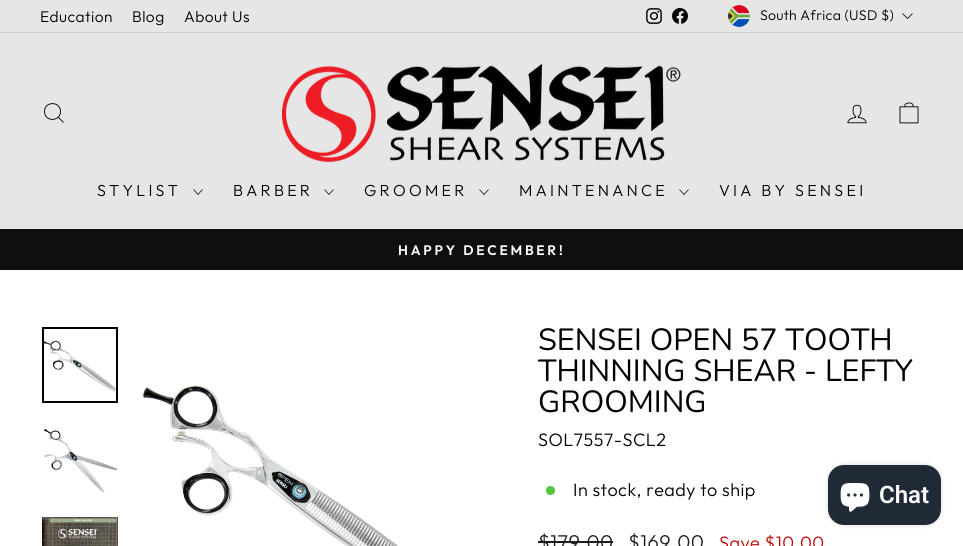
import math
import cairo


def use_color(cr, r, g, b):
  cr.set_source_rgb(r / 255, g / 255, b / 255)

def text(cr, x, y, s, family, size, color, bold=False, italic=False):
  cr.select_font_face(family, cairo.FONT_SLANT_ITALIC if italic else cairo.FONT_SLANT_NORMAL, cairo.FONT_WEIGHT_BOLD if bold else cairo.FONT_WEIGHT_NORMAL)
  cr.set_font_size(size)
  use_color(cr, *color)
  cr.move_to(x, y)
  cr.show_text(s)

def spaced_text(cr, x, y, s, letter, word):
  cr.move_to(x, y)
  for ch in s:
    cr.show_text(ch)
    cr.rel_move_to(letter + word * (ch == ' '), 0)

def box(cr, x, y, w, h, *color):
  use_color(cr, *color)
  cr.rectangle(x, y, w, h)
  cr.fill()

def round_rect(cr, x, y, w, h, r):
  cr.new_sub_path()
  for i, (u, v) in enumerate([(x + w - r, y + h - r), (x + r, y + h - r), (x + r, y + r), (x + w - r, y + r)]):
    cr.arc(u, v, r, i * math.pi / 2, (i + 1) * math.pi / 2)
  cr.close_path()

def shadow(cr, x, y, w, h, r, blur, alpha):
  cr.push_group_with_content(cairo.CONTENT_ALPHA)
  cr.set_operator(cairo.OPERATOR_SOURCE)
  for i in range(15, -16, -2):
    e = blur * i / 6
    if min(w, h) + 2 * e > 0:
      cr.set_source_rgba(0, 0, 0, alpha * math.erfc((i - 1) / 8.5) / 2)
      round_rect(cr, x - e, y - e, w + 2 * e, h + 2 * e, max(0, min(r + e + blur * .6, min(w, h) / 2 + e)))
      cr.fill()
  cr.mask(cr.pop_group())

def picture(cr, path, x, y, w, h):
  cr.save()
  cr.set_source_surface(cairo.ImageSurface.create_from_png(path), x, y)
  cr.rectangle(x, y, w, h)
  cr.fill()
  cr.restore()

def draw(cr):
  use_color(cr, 255, 255, 255)
  cr.paint()
  box(cr, 0, 0, 963, 32, 230, 230, 230)
  picture(cr, "img_01.png", 646, 8, 16, 16)
  picture(cr, "img_02.png", 672, 8, 16, 16)
  picture(cr, "img_03.png", 728, 5, 22, 22)
  cr.new_path()
  cr.move_to(902.5, 13.5)
  cr.line_to(907.5, 18.5)
  cr.line_to(912.5, 13.5)
  use_color(cr, 0, 0, 0)
  cr.set_line_width(0.8)
  cr.stroke()
  box(cr, 0, 33, 963, 196, 230, 230, 230)
  box(cr, 0, 32, 963, 1, 207, 207, 207)
  cr.new_path()
  cr.move_to(60.5, 111.5)
  cr.curve_to(60.5, 122, 44.5, 122, 44.5, 111.5)
  cr.curve_to(44.5, 101, 60.5, 101, 60.5, 111.5)
  cr.close_path()
  cr.move_to(63.5, 122.5)
  cr.line_to(58.5, 117.5)
  use_color(cr, 0, 0, 0)
  cr.set_line_width(0.9)
  cr.stroke()
  picture(cr, "img_04.png", 282, 63, 399, 99)
  picture(cr, "img_05.png", 847, 104, 20, 20)
  picture(cr, "img_06.png", 899, 102, 20, 22)
  cr.new_path()
  cr.move_to(193.5, 189.5)
  cr.line_to(198, 194.5)
  cr.line_to(202.5, 189.5)
  cr.set_line_width(0.7)
  cr.stroke()
  cr.new_path()
  cr.move_to(324.5, 189.5)
  cr.line_to(329, 194.5)
  cr.line_to(333.5, 189.5)
  cr.stroke()
  cr.new_path()
  cr.move_to(479.5, 189.5)
  cr.line_to(484, 194.5)
  cr.line_to(488.5, 189.5)
  cr.stroke()
  cr.new_path()
  cr.move_to(679.5, 189.5)
  cr.line_to(684, 194.5)
  cr.line_to(688.5, 189.5)
  cr.stroke()
  box(cr, 0, 229, 963, 41, 15, 15, 15)
  picture(cr, "img_07.png", 44, 340, 72, 52)
  cr.rectangle(43, 328, 74, 74)
  use_color(cr, 0, 0, 0)
  cr.set_line_width(2)
  cr.stroke()
  picture(cr, "img_08.png", 44, 428, 74, 65)
  picture(cr, "img_09.png", 42, 517, 76, 29)
  picture(cr, "img_10.png", 143, 385, 255, 161)
  use_color(cr, 84, 198, 58)
  cr.arc(550.5, 490.5, 4.5, 0, 2 * math.pi)
  cr.fill()
  box(cr, 538, 541, 75, 2, 28, 29, 29)
  use_color(cr, 0, 0, 0)
  shadow(cr, 828, 465, 113, 60, 16, 2.5, 0.15)
  use_color(cr, 32, 42, 54)
  round_rect(cr, 828, 465, 113, 60, 16)
  cr.fill()
  picture(cr, "img_11.png", 840, 483, 30, 29)
  cr.select_font_face("Outfit Light")
  cr.set_font_size(15.5)
  use_color(cr, 0, 0, 0)
  spaced_text(cr, 40, 22, "Education", 0.45, 0)
  spaced_text(cr, 132, 22, "Blog", 0.45, 0)
  spaced_text(cr, 184, 22, "About Us", 0.45, 0)
  cr.set_font_size(14)
  spaced_text(cr, 760, 20, "South Africa (USD $)", 0.3, 0)
  cr.set_font_size(16)
  spaced_text(cr, 97, 196, "STYLIST", 3.25, 0)
  spaced_text(cr, 233, 196, "BARBER", 3.25, 0)
  spaced_text(cr, 364, 196, "GROOMER", 3.25, 0)
  spaced_text(cr, 519, 196, "MAINTENANCE", 3.25, 0)
  spaced_text(cr, 719, 196, "VIA BY SENSEI", 3.25, 0)
  cr.select_font_face("Outfit SemiBold")
  cr.set_font_size(13.75)
  use_color(cr, 255, 255, 255)
  spaced_text(cr, 398, 255, "HAPPY DECEMBER!", 2.75, 0)
  text(cr, 538, 350, "SENSEI OPEN 57 TOOTH", "Nunito", 30.6, (0, 0, 0))
  text(cr, 538, 381, "THINNING SHEAR - LEFTY", "Nunito", 30.6, (0, 0, 0))
  text(cr, 538, 412, "GROOMING", "Nunito", 30.6, (0, 0, 0))
  cr.select_font_face("Outfit Light")
  cr.set_font_size(18)
  spaced_text(cr, 538, 446, "SOL7557-SCL2", 0.45, 0)
  spaced_text(cr, 573, 496, "In stock, ready to ship", 0.45, 0)
  cr.set_font_size(20)
  use_color(cr, 28, 29, 29)
  spaced_text(cr, 538, 549, "$179.00", 0.45, 0)
  spaced_text(cr, 628, 549, "$169.00", 0.45, 0)
  cr.set_font_size(18)
  use_color(cr, 194, 0, 0)
  spaced_text(cr, 719, 549, "Save $10.00", 0.45, 0)
  text(cr, 879, 503, "Chat", "Roboto SemiBold", 24, (255, 255, 255))


surface = cairo.ImageSurface(cairo.FORMAT_RGB24, 963, 546)
cr = cairo.Context(surface)
options = cairo.FontOptions()
options.set_hint_metrics(cairo.HINT_METRICS_OFF)
options.set_hint_style(cairo.HINT_STYLE_NONE)
cr.set_font_options(options)
cr.set_miter_limit(4)
draw(cr)
surface.write_to_png("out.png")
